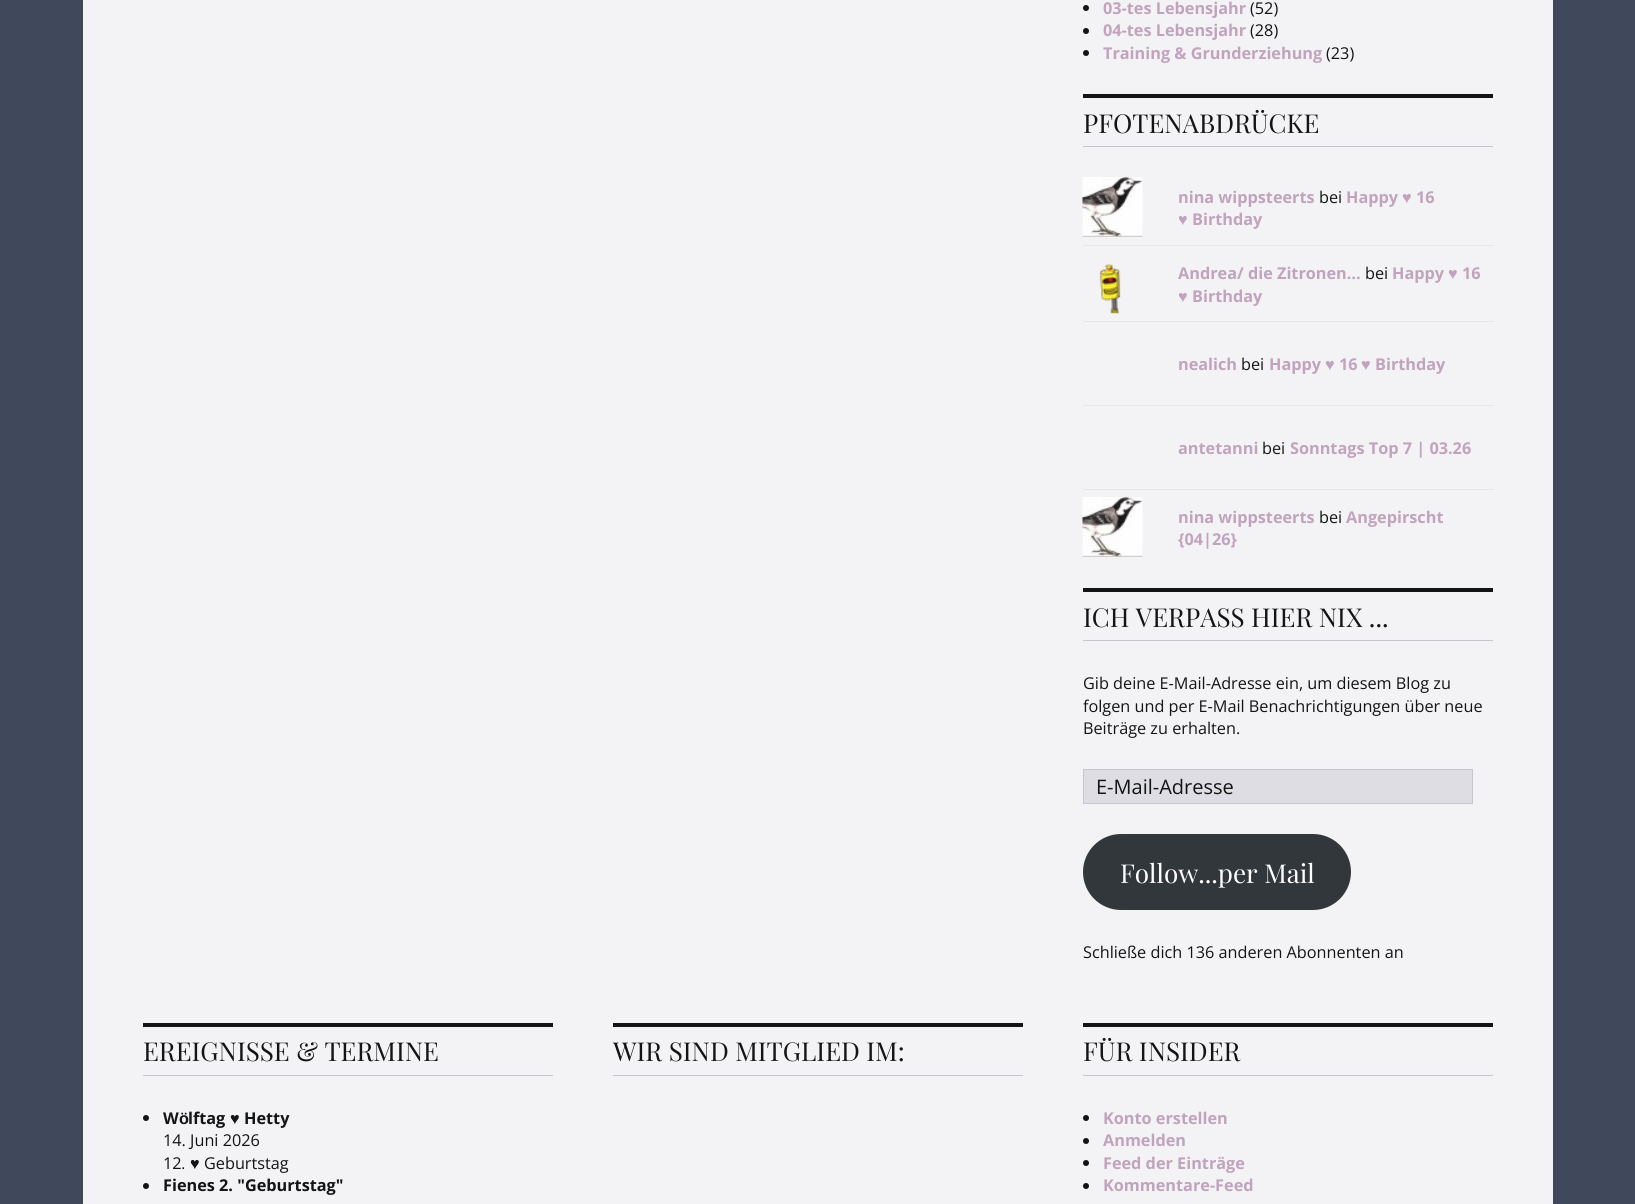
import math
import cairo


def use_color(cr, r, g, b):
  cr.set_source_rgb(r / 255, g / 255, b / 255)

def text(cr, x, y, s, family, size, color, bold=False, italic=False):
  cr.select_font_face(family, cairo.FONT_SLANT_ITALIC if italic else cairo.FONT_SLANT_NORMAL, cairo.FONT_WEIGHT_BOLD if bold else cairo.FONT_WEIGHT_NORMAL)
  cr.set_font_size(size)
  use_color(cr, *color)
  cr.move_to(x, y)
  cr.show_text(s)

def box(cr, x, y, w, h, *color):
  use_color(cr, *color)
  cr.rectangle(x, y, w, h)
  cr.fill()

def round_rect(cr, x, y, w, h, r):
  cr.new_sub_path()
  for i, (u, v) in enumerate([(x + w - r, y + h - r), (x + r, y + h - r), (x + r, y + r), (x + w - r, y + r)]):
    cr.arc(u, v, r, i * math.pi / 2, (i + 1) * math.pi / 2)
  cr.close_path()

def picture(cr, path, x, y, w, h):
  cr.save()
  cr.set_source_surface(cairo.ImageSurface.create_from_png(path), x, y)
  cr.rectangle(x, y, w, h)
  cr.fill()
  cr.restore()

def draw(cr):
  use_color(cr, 64, 73, 91)
  cr.paint()
  box(cr, 83, 0, 1470, 1204, 243, 243, 245)
  use_color(cr, 19, 20, 20)
  cr.arc(1086, 8, 3, 0, 2 * math.pi)
  cr.fill()
  cr.arc(1086, 31, 3, 0, 2 * math.pi)
  cr.fill()
  cr.arc(1086, 53, 3, 0, 2 * math.pi)
  cr.fill()
  box(cr, 1083, 94, 410, 4, 19, 20, 20)
  box(cr, 1083, 146, 410, 1, 198, 198, 209)
  box(cr, 1083, 245, 411, 1, 230, 230, 233)
  picture(cr, "img_01.png", 1082, 177, 61, 60)
  box(cr, 1083, 321, 411, 1, 230, 230, 233)
  picture(cr, "img_02.png", 1099, 264, 22, 50)
  box(cr, 1083, 405, 411, 1, 230, 230, 233)
  box(cr, 1083, 489, 411, 1, 230, 230, 233)
  picture(cr, "img_03.png", 1082, 497, 61, 60)
  box(cr, 1083, 588, 410, 4, 19, 20, 20)
  box(cr, 1083, 640, 410, 1, 198, 198, 209)
  use_color(cr, 221, 221, 227)
  cr.rectangle(1083.5, 769.5, 389, 34)
  cr.fill_preserve()
  use_color(cr, 198, 198, 209)
  cr.set_line_width(1)
  cr.stroke()
  use_color(cr, 50, 55, 60)
  round_rect(cr, 1083, 834, 268, 76, 38)
  cr.fill()
  box(cr, 143, 1023, 410, 4, 19, 20, 20)
  box(cr, 143, 1075, 410, 1, 198, 198, 209)
  use_color(cr, 19, 20, 20)
  cr.arc(146, 1118, 3, 0, 2 * math.pi)
  cr.fill()
  cr.arc(146, 1186, 3, 0, 2 * math.pi)
  cr.fill()
  box(cr, 613, 1023, 410, 4, 19, 20, 20)
  box(cr, 613, 1075, 410, 1, 198, 198, 209)
  box(cr, 1083, 1023, 410, 4, 19, 20, 20)
  box(cr, 1083, 1075, 410, 1, 198, 198, 209)
  use_color(cr, 19, 20, 20)
  cr.arc(1086, 1118, 3, 0, 2 * math.pi)
  cr.fill()
  cr.arc(1086, 1141, 3, 0, 2 * math.pi)
  cr.fill()
  cr.arc(1086, 1163, 3, 0, 2 * math.pi)
  cr.fill()
  cr.arc(1086, 1186, 3, 0, 2 * math.pi)
  cr.fill()
  text(cr, 1103, 14, "03-tes Lebensjahr", "Open Sans", 16.25, (193, 163, 189), bold=True)
  text(cr, 1250, 14, "(52)", "Open Sans", 16.25, (19, 20, 20))
  text(cr, 1103, 36, "04-tes Lebensjahr", "Open Sans", 16.25, (193, 163, 189), bold=True)
  text(cr, 1250, 36, "(28)", "Open Sans", 16.25, (19, 20, 20))
  text(cr, 1103, 59, "Training & Grunderziehung", "Open Sans", 16.25, (193, 163, 189), bold=True)
  text(cr, 1326, 59, "(23)", "Open Sans", 16.25, (19, 20, 20))
  text(cr, 1083, 133, "PFOTENABDRÜCKE", "Playfair Display", 26, (19, 20, 20))
  text(cr, 1178, 203, "nina wippsteerts", "Open Sans", 16.25, (193, 163, 189), bold=True)
  text(cr, 1319, 203, "bei", "Open Sans", 16.25, (19, 20, 20))
  text(cr, 1346, 203, "Happy", "Open Sans", 16.25, (193, 163, 189), bold=True)
  text(cr, 1402, 203, "♥", "Liberation Sans", 16.25, (193, 163, 189), bold=True)
  text(cr, 1416, 203, "16", "Open Sans", 16.25, (193, 163, 189), bold=True)
  text(cr, 1178, 225, "♥", "Liberation Sans", 16.25, (193, 163, 189), bold=True)
  text(cr, 1192, 225, "Birthday", "Open Sans", 16.25, (193, 163, 189), bold=True)
  text(cr, 1178, 279, "Andrea/ die Zitronen…", "Open Sans", 16.25, (193, 163, 189), bold=True)
  text(cr, 1365, 279, "bei", "Open Sans", 16.25, (19, 20, 20))
  text(cr, 1392, 279, "Happy", "Open Sans", 16.25, (193, 163, 189), bold=True)
  text(cr, 1448, 279, "♥", "Liberation Sans", 16.25, (193, 163, 189), bold=True)
  text(cr, 1462, 279, "16", "Open Sans", 16.25, (193, 163, 189), bold=True)
  text(cr, 1178, 302, "♥", "Liberation Sans", 16.25, (193, 163, 189), bold=True)
  text(cr, 1192, 302, "Birthday", "Open Sans", 16.25, (193, 163, 189), bold=True)
  text(cr, 1178, 370, "nealich", "Open Sans", 16.25, (193, 163, 189), bold=True)
  text(cr, 1241, 370, "bei", "Open Sans", 16.25, (19, 20, 20))
  text(cr, 1269, 370, "Happy", "Open Sans", 16.25, (193, 163, 189), bold=True)
  text(cr, 1325, 370, "♥", "Liberation Sans", 16.25, (193, 163, 189), bold=True)
  text(cr, 1339, 370, "16", "Open Sans", 16.25, (193, 163, 189), bold=True)
  text(cr, 1361, 370, "♥", "Liberation Sans", 16.25, (193, 163, 189), bold=True)
  text(cr, 1375, 370, "Birthday", "Open Sans", 16.25, (193, 163, 189), bold=True)
  text(cr, 1178, 454, "antetanni", "Open Sans", 16.25, (193, 163, 189), bold=True)
  text(cr, 1262, 454, "bei", "Open Sans", 16.25, (19, 20, 20))
  text(cr, 1290, 454, "Sonntags Top 7 | 03.26", "Open Sans", 16.25, (193, 163, 189), bold=True)
  text(cr, 1178, 523, "nina wippsteerts", "Open Sans", 16.25, (193, 163, 189), bold=True)
  text(cr, 1319, 523, "bei", "Open Sans", 16.25, (19, 20, 20))
  text(cr, 1346, 523, "Angepirscht", "Open Sans", 16.25, (193, 163, 189), bold=True)
  text(cr, 1178, 545, "{04|26}", "Open Sans", 16.25, (193, 163, 189), bold=True)
  text(cr, 1083, 627, "ICH VERPASS HIER NIX ...", "Playfair Display", 26, (19, 20, 20))
  text(cr, 1083, 689, "Gib deine E-Mail-Adresse ein, um diesem Blog zu", "Open Sans", 16.25, (19, 20, 20))
  text(cr, 1083, 712, "folgen und per E-Mail Benachrichtigungen über neue", "Open Sans", 16.25, (19, 20, 20))
  text(cr, 1083, 734, "Beiträge zu erhalten.", "Open Sans", 16.25, (19, 20, 20))
  text(cr, 1096, 794, "E-Mail-Adresse", "Open Sans", 20, (19, 20, 20))
  text(cr, 1120, 883, "Follow...per Mail", "Playfair Display", 26, (255, 255, 255))
  text(cr, 1083, 958, "Schließe dich 136 anderen Abonnenten an", "Open Sans", 16.25, (19, 20, 20))
  text(cr, 143, 1061, "EREIGNISSE & TERMINE", "Playfair Display", 26, (19, 20, 20))
  text(cr, 163, 1124, "W", "Open Sans", 16.25, (19, 20, 20), bold=True)
  text(cr, 179, 1124, "ö", "Liberation Sans", 16.25, (19, 20, 20), bold=True)
  text(cr, 188, 1124, "lftag", "Open Sans", 16.25, (19, 20, 20), bold=True)
  text(cr, 230, 1124, "♥", "Liberation Sans", 16.25, (19, 20, 20), bold=True)
  text(cr, 244, 1124, "Hetty", "Open Sans", 16.25, (19, 20, 20), bold=True)
  text(cr, 163, 1146, "14. Juni 2026", "Open Sans", 16.25, (19, 20, 20))
  text(cr, 163, 1169, "12", "Open Sans", 16.25, (19, 20, 20))
  text(cr, 181, 1169, ". ♥", "Liberation Sans", 16.25, (19, 20, 20))
  text(cr, 204, 1169, "Geburtstag", "Open Sans", 16.25, (19, 20, 20))
  text(cr, 163, 1191, "Fienes 2. \"Geburtstag\"", "Open Sans", 16.25, (19, 20, 20), bold=True)
  text(cr, 613, 1061, "WIR SIND MITGLIED IM:", "Playfair Display", 26, (19, 20, 20))
  text(cr, 1083, 1061, "FÜR INSIDER", "Playfair Display", 26, (19, 20, 20))
  text(cr, 1103, 1124, "Konto erstellen", "Open Sans", 16.25, (193, 163, 189), bold=True)
  text(cr, 1103, 1146, "Anmelden", "Open Sans", 16.25, (193, 163, 189), bold=True)
  text(cr, 1103, 1169, "Feed der Einträge", "Open Sans", 16.25, (193, 163, 189), bold=True)
  text(cr, 1103, 1191, "Kommentare-Feed", "Open Sans", 16.25, (193, 163, 189), bold=True)


surface = cairo.ImageSurface(cairo.FORMAT_RGB24, 1635, 1204)
cr = cairo.Context(surface)
options = cairo.FontOptions()
options.set_hint_metrics(cairo.HINT_METRICS_OFF)
options.set_hint_style(cairo.HINT_STYLE_NONE)
cr.set_font_options(options)
cr.set_miter_limit(4)
draw(cr)
surface.write_to_png("out.png")
